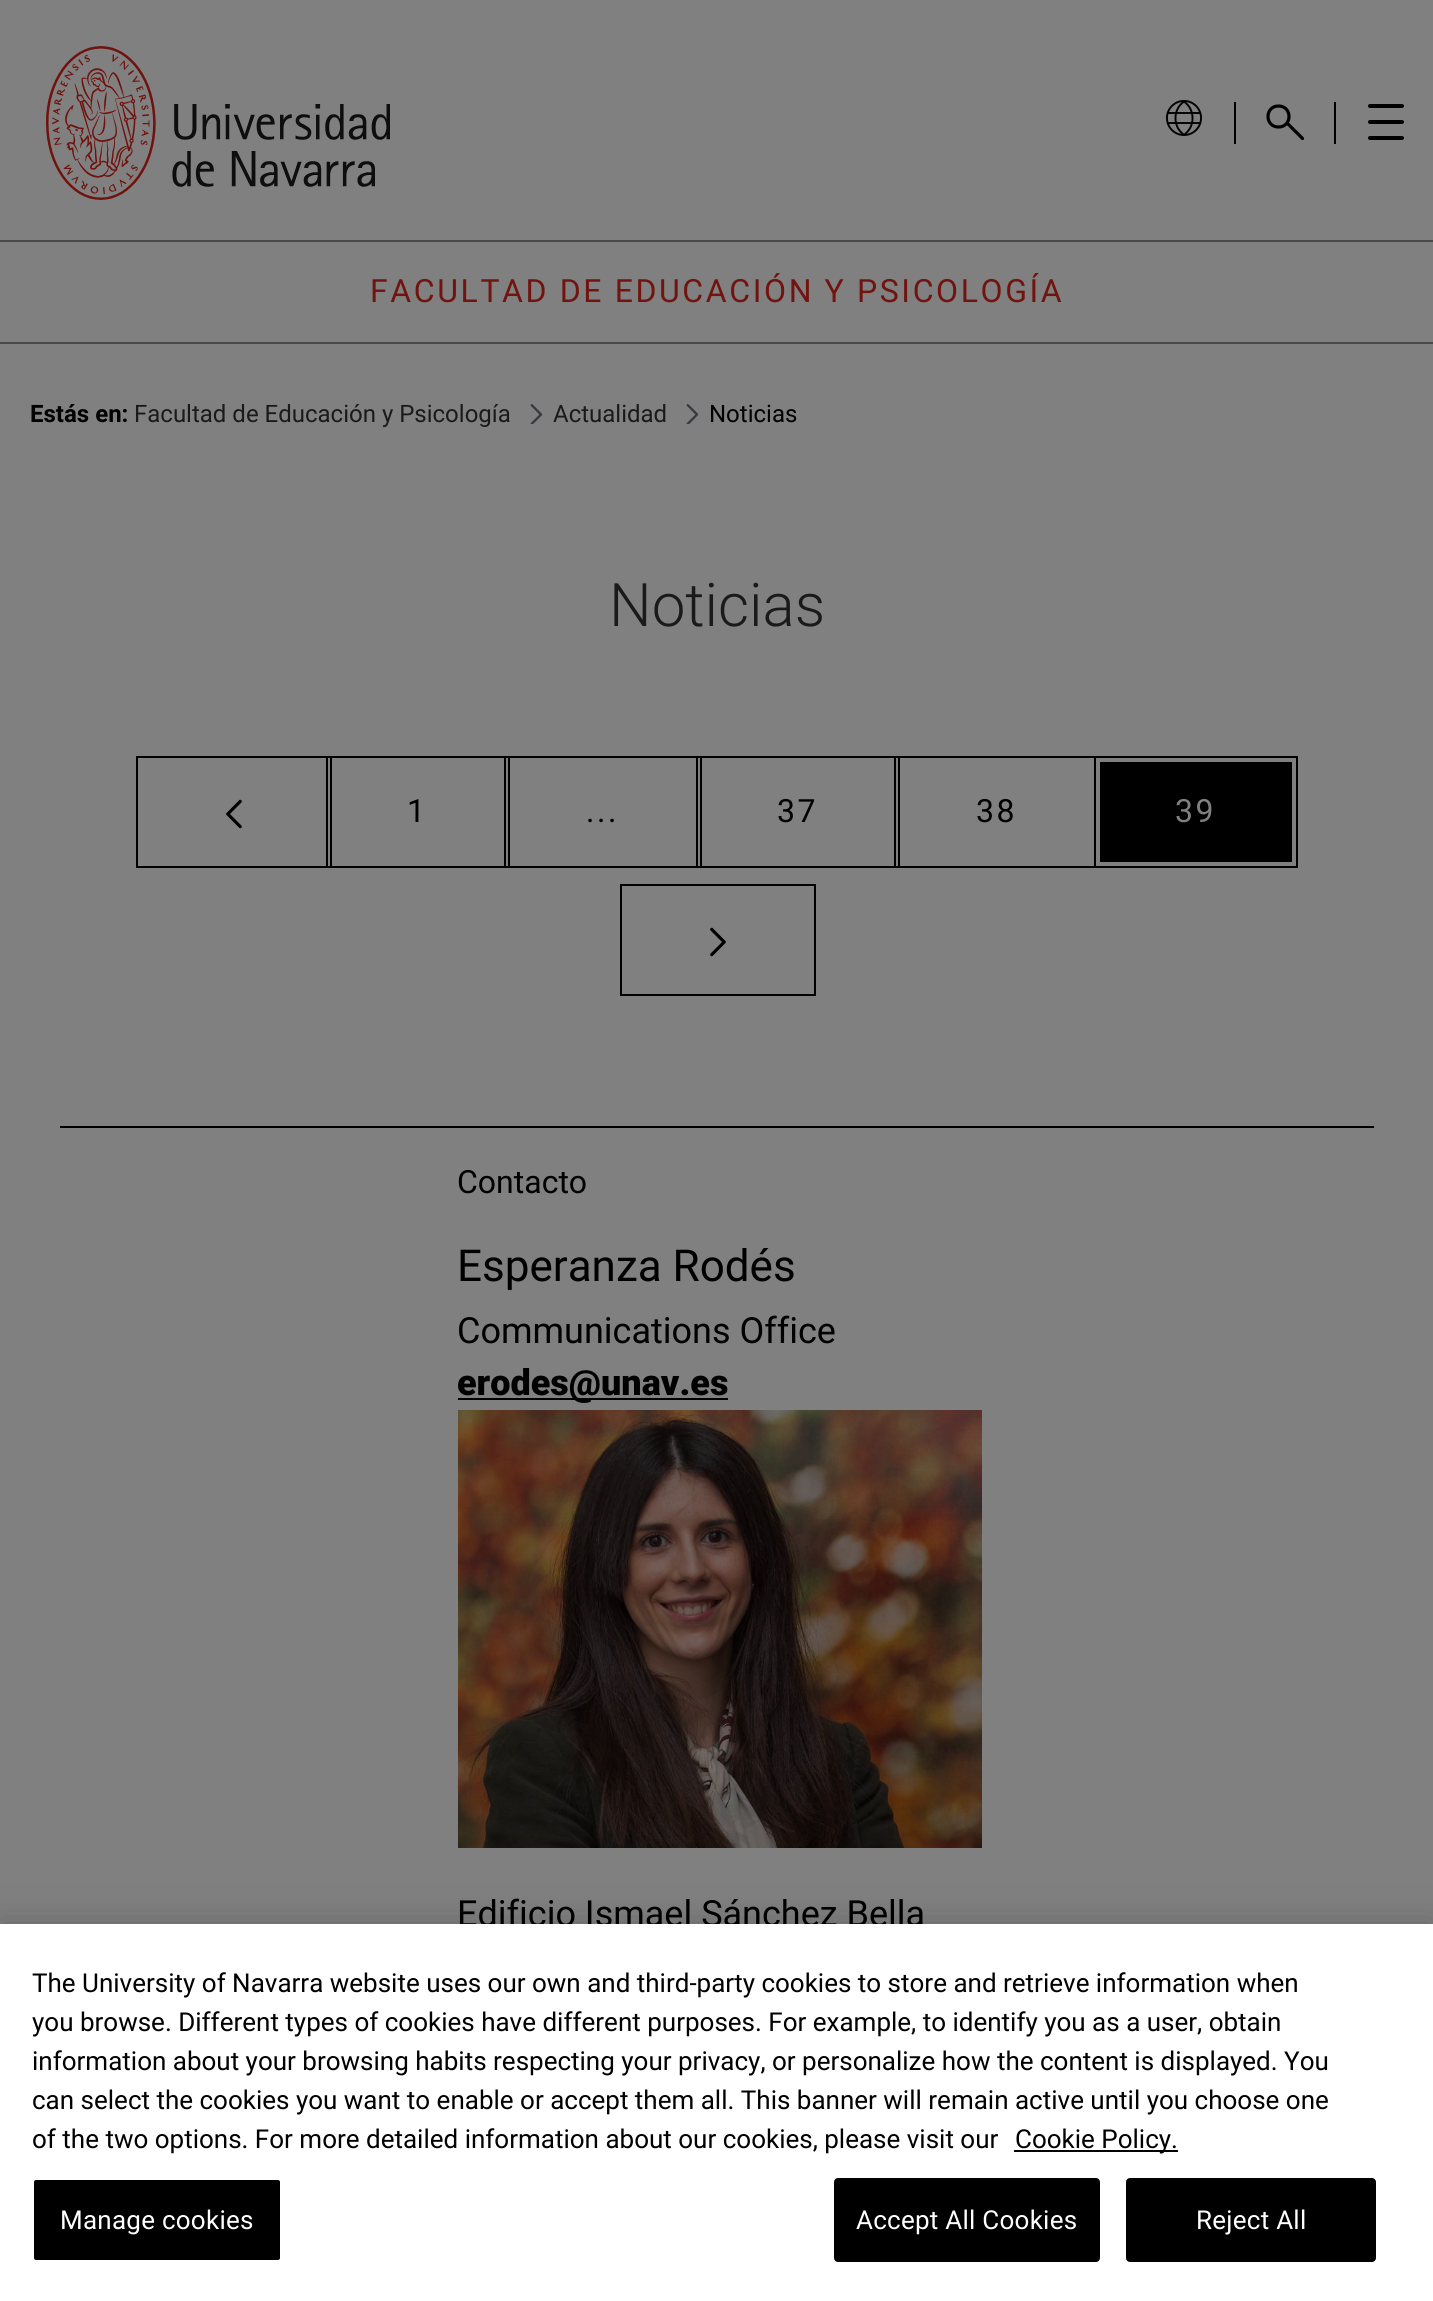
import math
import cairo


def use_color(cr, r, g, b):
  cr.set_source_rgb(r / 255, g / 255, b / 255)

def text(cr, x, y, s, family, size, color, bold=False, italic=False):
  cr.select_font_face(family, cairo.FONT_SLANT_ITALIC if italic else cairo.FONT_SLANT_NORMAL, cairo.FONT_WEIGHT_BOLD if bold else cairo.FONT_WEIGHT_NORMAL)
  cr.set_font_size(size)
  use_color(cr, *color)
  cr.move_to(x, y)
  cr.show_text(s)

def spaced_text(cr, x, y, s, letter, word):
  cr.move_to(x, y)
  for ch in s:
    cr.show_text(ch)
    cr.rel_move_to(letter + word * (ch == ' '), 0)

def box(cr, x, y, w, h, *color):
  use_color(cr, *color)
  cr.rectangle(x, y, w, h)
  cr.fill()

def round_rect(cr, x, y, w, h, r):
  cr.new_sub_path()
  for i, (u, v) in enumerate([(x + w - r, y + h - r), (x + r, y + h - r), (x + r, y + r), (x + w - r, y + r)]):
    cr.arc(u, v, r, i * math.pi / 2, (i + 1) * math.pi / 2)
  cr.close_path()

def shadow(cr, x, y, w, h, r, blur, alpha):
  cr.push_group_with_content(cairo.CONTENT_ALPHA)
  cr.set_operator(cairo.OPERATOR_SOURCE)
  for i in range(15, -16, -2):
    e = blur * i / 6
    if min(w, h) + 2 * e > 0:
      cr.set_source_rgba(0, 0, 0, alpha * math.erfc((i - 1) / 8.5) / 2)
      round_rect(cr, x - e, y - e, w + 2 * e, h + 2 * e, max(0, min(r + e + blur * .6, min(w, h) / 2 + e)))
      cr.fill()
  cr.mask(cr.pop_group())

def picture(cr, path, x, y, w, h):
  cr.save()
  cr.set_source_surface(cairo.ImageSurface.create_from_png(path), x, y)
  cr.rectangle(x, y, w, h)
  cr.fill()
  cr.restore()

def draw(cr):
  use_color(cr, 128, 128, 128)
  cr.paint()
  picture(cr, "img_01.png", 46, 46, 344, 154)
  box(cr, 1234, 102, 2, 42, 0, 0, 0)
  picture(cr, "img_02.png", 1166, 100, 36, 36)
  box(cr, 1334, 102, 2, 42, 0, 0, 0)
  cr.new_path()
  cr.move_to(1278.5, 127)
  cr.curve_to(1292.5, 127, 1292.5, 106, 1278.5, 106)
  cr.curve_to(1264.5, 106, 1264.5, 127, 1278.5, 127)
  cr.close_path()
  cr.move_to(1287, 123)
  cr.line_to(1302.5, 138.5)
  cr.set_line_width(3.2)
  cr.set_line_cap(cairo.LINE_CAP_ROUND)
  cr.set_line_join(cairo.LINE_JOIN_ROUND)
  cr.stroke()
  round_rect(cr, 1368, 104, 36, 4, 2)
  cr.fill()
  round_rect(cr, 1368, 120, 36, 4, 2)
  cr.fill()
  round_rect(cr, 1368, 136, 36, 4, 2)
  cr.fill()
  box(cr, 0, 240, 1433, 2, 75, 72, 72)
  box(cr, 0, 342, 1433, 2, 75, 72, 72)
  picture(cr, "img_03.png", 530, 404, 13, 20)
  picture(cr, "img_03.png", 686, 404, 13, 20)
  cr.rectangle(137, 757, 194, 110)
  use_color(cr, 0, 0, 0)
  cr.set_line_width(2)
  cr.set_line_cap(cairo.LINE_CAP_BUTT)
  cr.set_line_join(cairo.LINE_JOIN_MITER)
  cr.stroke()
  picture(cr, "img_04.png", 226, 799, 16, 30)
  cr.rectangle(327, 757, 182, 110)
  cr.stroke()
  cr.rectangle(505, 757, 196, 110)
  cr.stroke()
  cr.rectangle(697, 757, 202, 110)
  cr.stroke()
  cr.rectangle(895, 757, 204, 110)
  cr.stroke()
  cr.rectangle(1098, 760, 196, 104)
  cr.fill_preserve()
  use_color(cr, 128, 128, 128)
  cr.set_line_width(4)
  cr.stroke()
  cr.rectangle(1095, 757, 202, 110)
  use_color(cr, 0, 0, 0)
  cr.set_line_width(2)
  cr.stroke()
  cr.rectangle(621, 885, 194, 110)
  cr.stroke()
  picture(cr, "img_05.png", 710, 927, 16, 30)
  box(cr, 60, 1126, 1314, 2, 0, 0, 0)
  box(cr, 458, 1398, 270, 2, 0, 0, 0)
  picture(cr, "img_06.png", 458, 1410, 524, 438)
  use_color(cr, 0, 0, 0)
  shadow(cr, 0, 1924, 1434, 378, 0, 18, 0.2)
  cr.select_font_face("Roboto")
  cr.set_font_size(32)
  use_color(cr, 113, 19, 14)
  spaced_text(cr, 370, 302, "FACULTAD DE EDUCACIÓN Y PSICOLOGÍA", 2.6, 0)
  text(cr, 30, 422, "Estás en:", "Roboto", 24, (0, 0, 0), bold=True)
  text(cr, 134, 422, "Facultad de Educación y Psicología", "Roboto", 24, (26, 26, 26))
  text(cr, 553, 422, "Actualidad", "Roboto", 24, (26, 26, 26))
  text(cr, 709, 422, "Noticias", "Roboto", 24, (0, 0, 0))
  text(cr, 609, 626, "Noticias", "Roboto Light", 60, (26, 26, 26))
  cr.select_font_face("Roboto")
  cr.set_font_size(32)
  use_color(cr, 0, 0, 0)
  spaced_text(cr, 407, 822, "1", 2.6, 0)
  spaced_text(cr, 586, 822, "...", 2.6, 0)
  spaced_text(cr, 777, 822, "37", 2.6, 0)
  spaced_text(cr, 976, 822, "38", 2.6, 0)
  use_color(cr, 128, 128, 128)
  spaced_text(cr, 1175, 822, "39", 2.6, 0)
  text(cr, 457, 1193, "Contacto", "Roboto", 32, (0, 0, 0))
  text(cr, 457, 1281, "Esperanza Rodés", "Roboto", 44, (0, 0, 0))
  text(cr, 457, 1343, "Communications Office", "Roboto", 36, (0, 0, 0))
  text(cr, 457, 1395, "erodes@unav.es", "Roboto Black", 36, (0, 0, 0))
  text(cr, 457, 1926, "Edificio Ismael Sánchez Bella", "Roboto", 36, (0, 0, 0))
  box(cr, 0, 1924, 1433, 377, 255, 255, 255)
  text(cr, 32, 1992, "The University of Navarra website uses our own and third-party cookies to store and retrieve information when", "Roboto", 26, (0, 0, 0))
  text(cr, 32, 2031, "you browse. Different types of cookies have different purposes. For example, to identify you as a user, obtain", "Roboto", 26, (0, 0, 0))
  text(cr, 32, 2070, "information about your browsing habits respecting your privacy, or personalize how the content is displayed. You", "Roboto", 26, (0, 0, 0))
  text(cr, 32, 2109, "can select the cookies you want to enable or accept them all. This banner will remain active until you choose one", "Roboto", 26, (0, 0, 0))
  text(cr, 32, 2148, "of the two options. For more detailed information about our cookies, please visit our", "Roboto", 26, (0, 0, 0))
  box(cr, 1014, 2150, 164, 2, 0, 0, 0)
  text(cr, 1015, 2148, "Cookie Policy.", "Roboto", 26, (0, 0, 0))
  round_rect(cr, 33, 2179, 248, 82, 3)
  cr.fill_preserve()
  use_color(cr, 255, 255, 255)
  cr.stroke()
  spaced_text(cr, 60, 2229, "Manage cookies", 0.25, 0)
  use_color(cr, 0, 0, 0)
  round_rect(cr, 835, 2179, 264, 82, 3)
  cr.fill_preserve()
  cr.stroke()
  use_color(cr, 255, 255, 255)
  spaced_text(cr, 856, 2229, "Accept All Cookies", 0.25, 0)
  use_color(cr, 0, 0, 0)
  round_rect(cr, 1127, 2179, 248, 82, 3)
  cr.fill_preserve()
  cr.stroke()
  use_color(cr, 255, 255, 255)
  spaced_text(cr, 1196, 2229, "Reject All", 0.25, 0)


surface = cairo.ImageSurface(cairo.FORMAT_RGB24, 1433, 2301)
cr = cairo.Context(surface)
options = cairo.FontOptions()
options.set_hint_metrics(cairo.HINT_METRICS_OFF)
options.set_hint_style(cairo.HINT_STYLE_NONE)
cr.set_font_options(options)
cr.set_miter_limit(4)
draw(cr)
surface.write_to_png("out.png")
